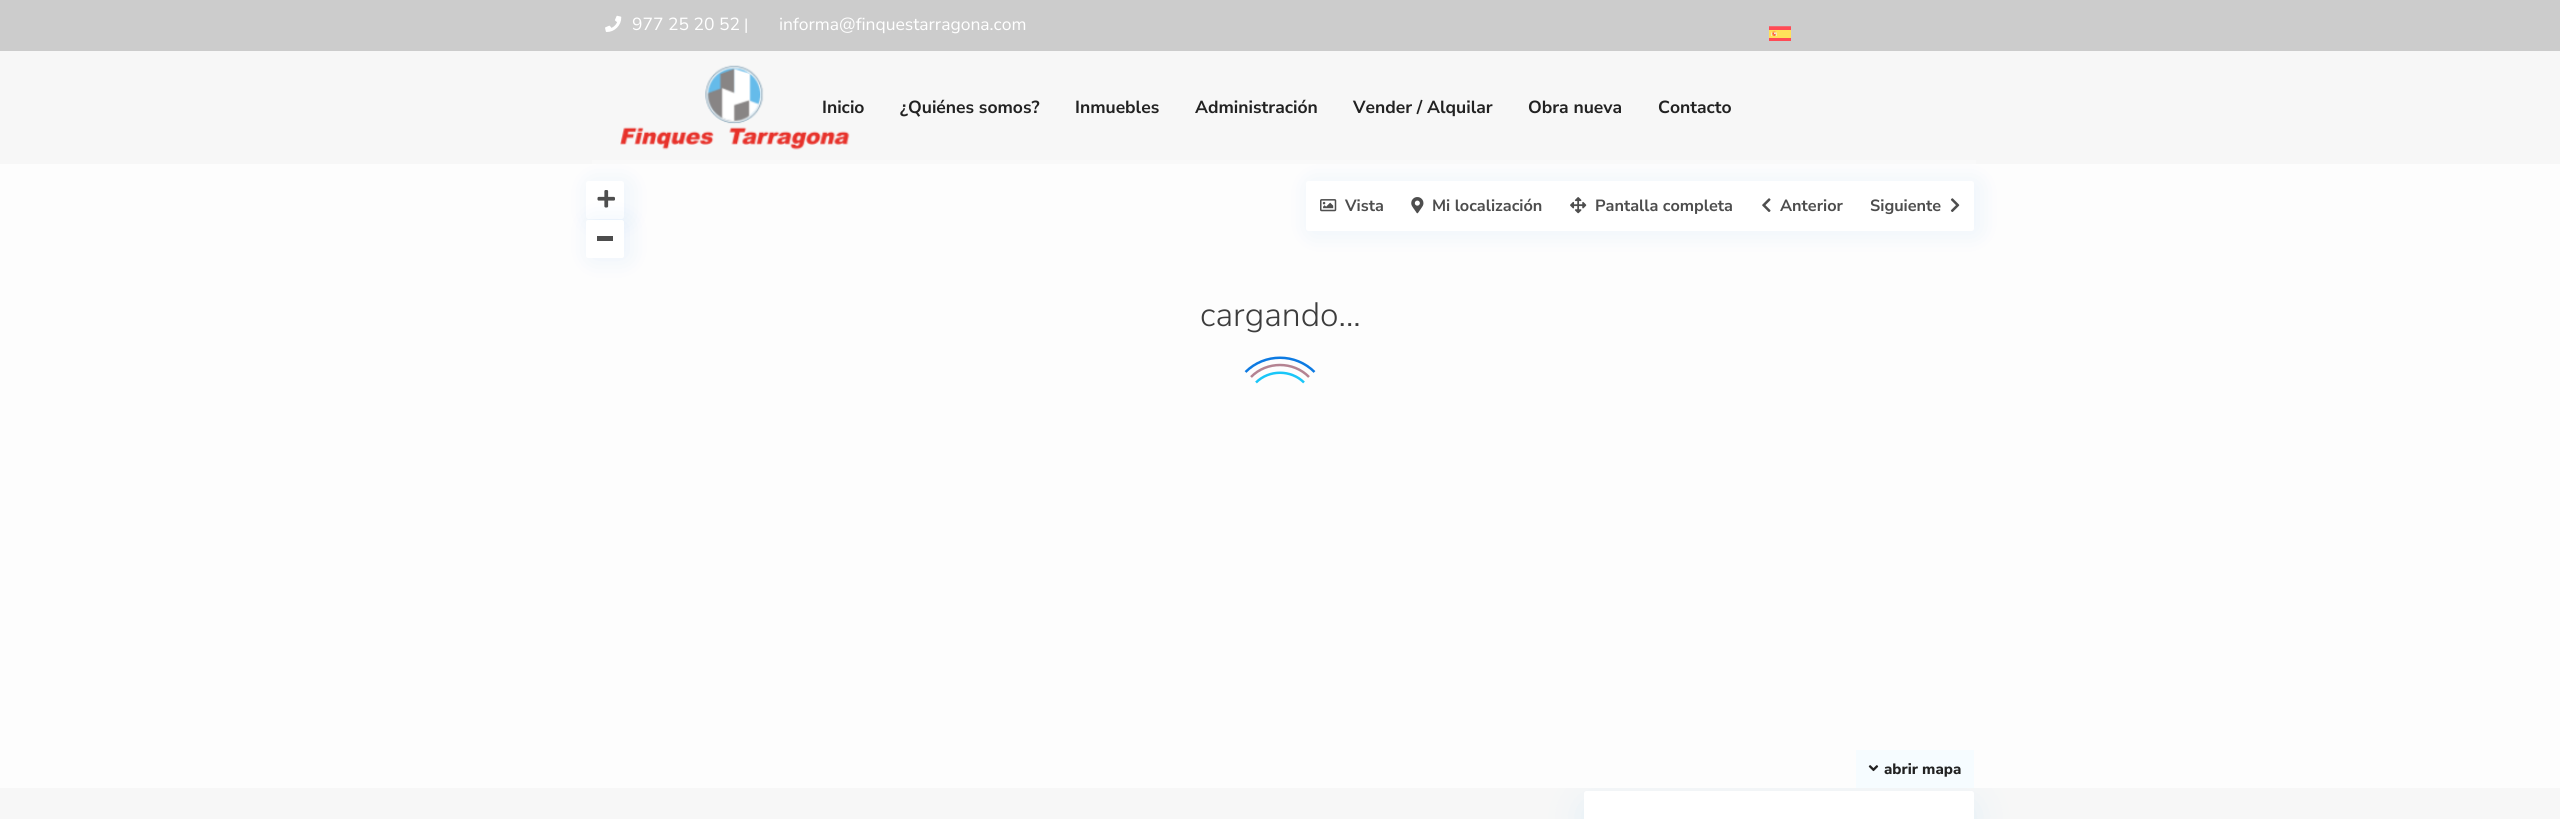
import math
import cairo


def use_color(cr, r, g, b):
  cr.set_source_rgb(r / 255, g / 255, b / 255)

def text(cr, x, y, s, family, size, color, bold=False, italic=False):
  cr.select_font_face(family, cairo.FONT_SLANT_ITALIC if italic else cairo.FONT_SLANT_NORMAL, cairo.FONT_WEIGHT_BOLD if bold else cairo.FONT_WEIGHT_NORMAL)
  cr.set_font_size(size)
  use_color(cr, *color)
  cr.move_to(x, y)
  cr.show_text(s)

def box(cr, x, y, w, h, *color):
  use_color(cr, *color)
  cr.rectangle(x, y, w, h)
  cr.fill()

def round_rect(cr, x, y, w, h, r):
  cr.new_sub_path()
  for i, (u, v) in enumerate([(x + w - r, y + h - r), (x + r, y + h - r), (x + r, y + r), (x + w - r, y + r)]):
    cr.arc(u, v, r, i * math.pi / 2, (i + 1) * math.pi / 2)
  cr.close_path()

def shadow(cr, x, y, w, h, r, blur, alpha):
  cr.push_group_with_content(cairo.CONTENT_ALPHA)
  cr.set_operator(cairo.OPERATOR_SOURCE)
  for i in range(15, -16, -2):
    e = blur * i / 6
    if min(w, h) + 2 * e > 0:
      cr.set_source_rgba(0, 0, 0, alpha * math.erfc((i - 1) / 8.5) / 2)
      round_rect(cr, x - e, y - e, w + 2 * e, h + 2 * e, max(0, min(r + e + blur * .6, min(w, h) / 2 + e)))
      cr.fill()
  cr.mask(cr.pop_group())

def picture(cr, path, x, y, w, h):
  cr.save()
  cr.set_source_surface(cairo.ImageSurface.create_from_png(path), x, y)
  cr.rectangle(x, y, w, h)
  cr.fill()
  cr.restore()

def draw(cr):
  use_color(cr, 247, 247, 247)
  cr.paint()
  use_color(cr, 7, 152, 255)
  shadow(cr, 1584, 804, 390, 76, 2.5, 19.5, 0.09)
  box(cr, 0, 164, 2560, 624, 253, 253, 253)
  use_color(cr, 13, 117, 226)
  shadow(cr, 590, 183, 38, 37, 2.5, 12.5, 0.08)
  shadow(cr, 1310, 183, 668, 50, 2.5, 12.5, 0.08)
  box(cr, 592, 160, 1384, 4, 249, 249, 249)
  box(cr, 0, 0, 2560, 51, 204, 204, 204)
  picture(cr, "img_01.png", 605, 15, 17, 17)
  picture(cr, "img_02.png", 1769, 26, 22, 15)
  picture(cr, "img_03.png", 620, 65, 230, 85)
  cr.new_path()
  cr.move_to(1245.5, 372)
  cr.curve_to(1264.5, 353, 1295.5, 353, 1314.5, 372)
  use_color(cr, 13, 122, 226)
  cr.set_line_width(2.5)
  cr.stroke()
  cr.new_path()
  cr.move_to(1251, 377)
  cr.curve_to(1266.5, 361, 1293.5, 361, 1309, 377)
  use_color(cr, 180, 131, 146)
  cr.stroke()
  cr.new_path()
  cr.move_to(1256, 382.5)
  cr.curve_to(1269, 369.5, 1291, 369.5, 1304, 382.5)
  use_color(cr, 25, 198, 248)
  cr.stroke()
  use_color(cr, 255, 255, 255)
  round_rect(cr, 586, 181, 38, 38, 2.5)
  cr.fill()
  picture(cr, "img_04.png", 597, 190, 18, 18)
  cr.save()
  cr.set_fill_rule(cairo.FILL_RULE_EVEN_ODD)
  cr.new_path()
  cr.move_to(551, 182)
  cr.line_to(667, 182)
  cr.line_to(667, 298)
  cr.line_to(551, 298)
  cr.close_path()
  cr.move_to(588.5, 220)
  cr.line_to(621.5, 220)
  cr.curve_to(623, 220, 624, 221, 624, 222.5)
  cr.line_to(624, 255.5)
  cr.curve_to(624, 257, 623, 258, 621.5, 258)
  cr.line_to(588.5, 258)
  cr.curve_to(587, 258, 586, 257, 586, 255.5)
  cr.line_to(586, 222.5)
  cr.curve_to(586, 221, 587, 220, 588.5, 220)
  cr.close_path()
  cr.clip()
  use_color(cr, 0, 110, 225)
  shadow(cr, 590, 221, 38, 38, 2.5, 12.5, 0.08)
  cr.restore()
  cr.set_source_rgba(1, 1, 1, 0.95)
  round_rect(cr, 586, 220, 38, 38, 2.5)
  cr.fill()
  box(cr, 597, 236, 16, 5, 77, 77, 77)
  use_color(cr, 255, 255, 255)
  round_rect(cr, 1306, 181, 668, 50, 2.5)
  cr.fill()
  picture(cr, "img_05.png", 1320, 199, 17, 13)
  picture(cr, "img_06.png", 1411, 197, 13, 17)
  picture(cr, "img_07.png", 1570, 197, 17, 17)
  picture(cr, "img_08.png", 1762, 198, 9, 14)
  picture(cr, "img_09.png", 1950, 198, 10, 14)
  box(cr, 1856, 750, 118, 38, 246, 252, 255)
  picture(cr, "img_10.png", 1868, 765, 11, 7)
  use_color(cr, 255, 255, 255)
  round_rect(cr, 1584, 791, 390, 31, 2.5)
  cr.fill()
  text(cr, 632, 30, "977 25 20 52", "Nunito Sans", 17.5, (255, 255, 255))
  text(cr, 744, 30, "|", "Nunito Sans", 16.25, (255, 255, 255))
  text(cr, 779, 30, "informa@finquestarragona.com", "Nunito Sans", 17.5, (255, 255, 255))
  text(cr, 822, 113, "Inicio", "Nunito Sans", 17.5, (34, 34, 34), bold=True)
  text(cr, 900, 113, "¿Quiénes somos?", "Nunito Sans", 17.5, (34, 34, 34), bold=True)
  text(cr, 1075, 113, "Inmuebles", "Nunito Sans", 17.5, (34, 34, 34), bold=True)
  text(cr, 1195, 113, "Administración", "Nunito Sans", 17.5, (34, 34, 34), bold=True)
  text(cr, 1353, 113, "Vender / Alquilar", "Nunito Sans", 17.5, (34, 34, 34), bold=True)
  text(cr, 1528, 113, "Obra nueva", "Nunito Sans", 17.5, (34, 34, 34), bold=True)
  text(cr, 1658, 113, "Contacto", "Nunito Sans", 17.5, (34, 34, 34), bold=True)
  text(cr, 1200, 326, "cargando...", "Nunito Sans Light", 33.75, (61, 61, 61))
  text(cr, 1345, 211, "Vista", "Nunito Sans", 16.25, (77, 77, 77), bold=True)
  text(cr, 1432, 211, "Mi localización", "Nunito Sans", 16.25, (77, 77, 77), bold=True)
  text(cr, 1595, 211, "Pantalla completa", "Nunito Sans", 16.25, (77, 77, 77), bold=True)
  text(cr, 1780, 211, "Anterior", "Nunito Sans", 16.25, (77, 77, 77), bold=True)
  text(cr, 1870, 211, "Siguiente", "Nunito Sans", 16.25, (77, 77, 77), bold=True)
  text(cr, 1884, 774, "abrir mapa", "Nunito Sans ExtraBold", 15, (34, 34, 34))


surface = cairo.ImageSurface(cairo.FORMAT_RGB24, 2560, 819)
cr = cairo.Context(surface)
options = cairo.FontOptions()
options.set_hint_metrics(cairo.HINT_METRICS_OFF)
options.set_hint_style(cairo.HINT_STYLE_NONE)
cr.set_font_options(options)
cr.set_miter_limit(4)
draw(cr)
surface.write_to_png("out.png")
